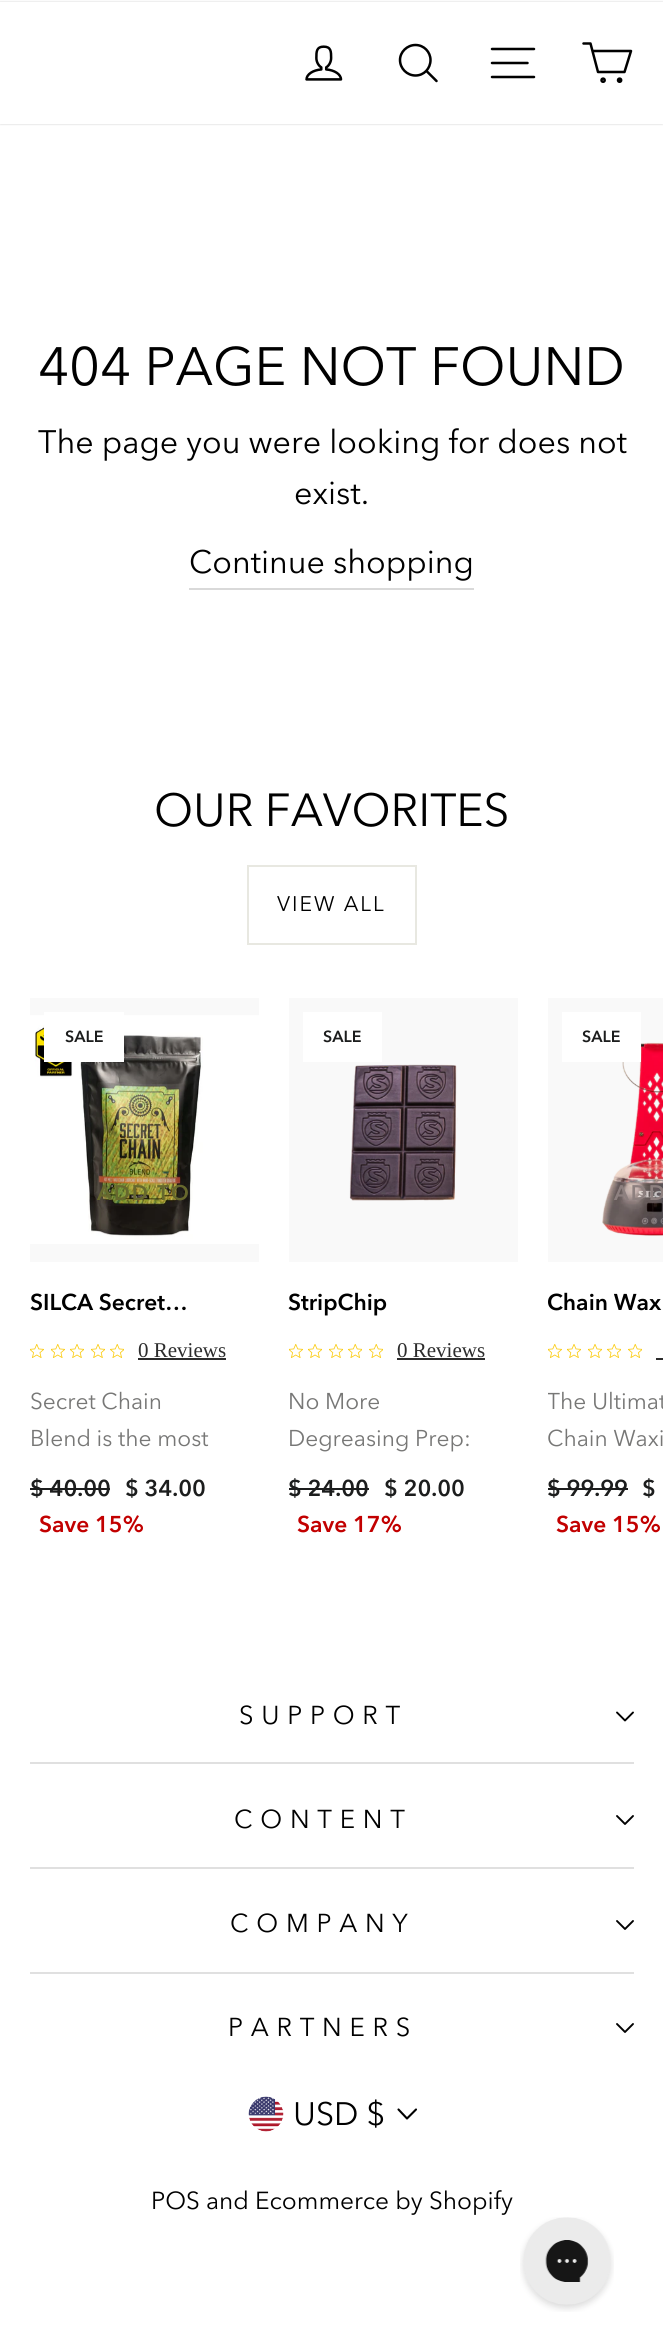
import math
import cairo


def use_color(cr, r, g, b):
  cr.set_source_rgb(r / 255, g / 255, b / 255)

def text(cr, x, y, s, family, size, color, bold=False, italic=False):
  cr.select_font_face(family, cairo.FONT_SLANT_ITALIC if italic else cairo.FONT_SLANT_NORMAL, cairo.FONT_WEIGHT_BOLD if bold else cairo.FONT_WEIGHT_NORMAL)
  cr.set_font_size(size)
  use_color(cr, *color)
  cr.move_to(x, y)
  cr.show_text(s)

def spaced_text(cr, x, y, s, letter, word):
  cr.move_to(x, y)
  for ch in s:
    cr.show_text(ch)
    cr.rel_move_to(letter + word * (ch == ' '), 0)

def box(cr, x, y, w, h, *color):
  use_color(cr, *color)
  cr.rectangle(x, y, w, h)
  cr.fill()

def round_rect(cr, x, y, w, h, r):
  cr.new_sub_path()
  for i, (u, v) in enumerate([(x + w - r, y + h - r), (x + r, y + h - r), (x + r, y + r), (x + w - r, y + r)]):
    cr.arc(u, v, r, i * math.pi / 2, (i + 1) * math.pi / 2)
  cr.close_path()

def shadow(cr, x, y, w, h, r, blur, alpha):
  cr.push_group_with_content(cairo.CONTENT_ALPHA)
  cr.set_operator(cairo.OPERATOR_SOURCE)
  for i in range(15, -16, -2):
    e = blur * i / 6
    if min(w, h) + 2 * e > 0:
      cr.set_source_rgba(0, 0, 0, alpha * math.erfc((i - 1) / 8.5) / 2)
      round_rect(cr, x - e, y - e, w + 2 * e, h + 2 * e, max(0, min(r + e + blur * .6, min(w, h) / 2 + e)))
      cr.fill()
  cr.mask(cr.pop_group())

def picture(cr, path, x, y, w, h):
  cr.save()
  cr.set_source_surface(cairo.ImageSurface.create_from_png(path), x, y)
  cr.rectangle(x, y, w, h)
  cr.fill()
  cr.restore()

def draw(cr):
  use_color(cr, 255, 255, 255)
  cr.paint()
  cr.save()
  cr.set_fill_rule(cairo.FILL_RULE_EVEN_ODD)
  cr.new_path()
  cr.move_to(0, 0)
  cr.line_to(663, 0)
  cr.line_to(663, 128)
  cr.line_to(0, 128)
  cr.close_path()
  cr.move_to(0, 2)
  cr.line_to(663, 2)
  cr.line_to(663, 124)
  cr.line_to(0, 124)
  cr.close_path()
  cr.clip()
  use_color(cr, 0, 0, 0)
  shadow(cr, 0, 2, 663, 122, 0, 1, 0.2)
  cr.restore()
  picture(cr, "img_01.png", 305, 45, 38, 36)
  cr.new_path()
  cr.move_to(430.5, 60)
  cr.curve_to(430.5, 68.5, 424, 75.5, 415.5, 75.5)
  cr.curve_to(407, 75.5, 400, 68.5, 400, 60)
  cr.curve_to(400, 52, 407, 45, 415.5, 45)
  cr.curve_to(424, 45, 430.5, 52, 430.5, 60)
  cr.close_path()
  cr.move_to(436.5, 81)
  cr.line_to(426.5, 71)
  use_color(cr, 0, 0, 0)
  cr.set_line_width(2.5)
  cr.set_line_cap(cairo.LINE_CAP_ROUND)
  cr.set_line_join(cairo.LINE_JOIN_ROUND)
  cr.stroke()
  cr.new_path()
  cr.move_to(492, 49)
  cr.line_to(534, 49)
  cr.move_to(492, 63)
  cr.line_to(527.5, 63)
  cr.move_to(492, 77)
  cr.line_to(534, 77)
  cr.stroke()
  cr.new_path()
  cr.move_to(592.5, 51)
  cr.line_to(631, 51)
  cr.line_to(624.5, 72)
  cr.line_to(598, 72)
  cr.line_to(590.5, 43.5)
  cr.line_to(583.5, 43.5)
  cr.stroke()
  cr.arc(603.1, 80.2, 1.6, 0, 2 * math.pi)
  cr.set_line_cap(cairo.LINE_CAP_BUTT)
  cr.set_line_join(cairo.LINE_JOIN_MITER)
  cr.stroke()
  cr.arc(619.6, 80.2, 1.6, 0, 2 * math.pi)
  cr.fill_preserve()
  cr.stroke()
  box(cr, 189, 588, 285, 2, 217, 217, 217)
  cr.rectangle(248, 866, 168, 78)
  use_color(cr, 232, 232, 225)
  cr.set_line_width(2)
  cr.stroke()
  box(cr, 30, 998, 229, 264, 249, 249, 249)
  picture(cr, "img_02.png", 30, 1015, 229, 229)
  box(cr, 44, 1012, 80, 50, 255, 255, 255)
  picture(cr, "img_03.png", 30, 1344, 14, 14)
  picture(cr, "img_03.png", 51, 1344, 14, 14)
  picture(cr, "img_04.png", 70, 1344, 14, 14)
  picture(cr, "img_04.png", 91, 1344, 14, 14)
  picture(cr, "img_05.png", 110, 1344, 14, 14)
  box(cr, 138, 1358, 88, 2, 44, 44, 44)
  box(cr, 30, 1488, 80, 2, 28, 29, 29)
  box(cr, 289, 998, 229, 264, 249, 249, 249)
  box(cr, 303, 1012, 79, 50, 255, 255, 255)
  picture(cr, "img_06.png", 349, 1064, 109, 137)
  picture(cr, "img_03.png", 289, 1344, 14, 14)
  picture(cr, "img_04.png", 308, 1344, 14, 14)
  picture(cr, "img_04.png", 329, 1344, 14, 14)
  picture(cr, "img_05.png", 348, 1344, 14, 14)
  picture(cr, "img_05.png", 369, 1344, 14, 14)
  box(cr, 397, 1358, 88, 2, 44, 44, 44)
  box(cr, 289, 1488, 80, 2, 28, 29, 29)
  box(cr, 548, 998, 115, 264, 249, 249, 249)
  picture(cr, "img_07.png", 602, 1042, 61, 194)
  box(cr, 562, 1012, 79, 50, 255, 255, 255)
  picture(cr, "img_03.png", 548, 1344, 14, 14)
  picture(cr, "img_04.png", 567, 1344, 14, 14)
  picture(cr, "img_04.png", 588, 1344, 14, 14)
  picture(cr, "img_05.png", 607, 1344, 14, 14)
  picture(cr, "img_05.png", 628, 1344, 14, 14)
  box(cr, 656, 1358, 7, 2, 44, 44, 44)
  box(cr, 548, 1488, 80, 2, 28, 29, 29)
  cr.new_path()
  cr.move_to(617, 1712.5)
  cr.line_to(625, 1720.5)
  cr.line_to(633, 1712.5)
  use_color(cr, 0, 0, 0)
  cr.set_line_width(1.9)
  cr.set_line_cap(cairo.LINE_CAP_ROUND)
  cr.set_line_join(cairo.LINE_JOIN_ROUND)
  cr.stroke()
  box(cr, 30, 1762, 604, 2, 224, 224, 224)
  cr.new_path()
  cr.move_to(617, 1816)
  cr.line_to(625, 1824)
  cr.line_to(633, 1816)
  use_color(cr, 0, 0, 0)
  cr.stroke()
  box(cr, 30, 1867, 604, 2, 224, 224, 224)
  cr.new_path()
  cr.move_to(617, 1921)
  cr.line_to(625, 1929)
  cr.line_to(633, 1921)
  use_color(cr, 0, 0, 0)
  cr.stroke()
  box(cr, 30, 1972, 604, 2, 224, 224, 224)
  cr.new_path()
  cr.move_to(617, 2024)
  cr.line_to(625, 2032)
  cr.line_to(633, 2024)
  use_color(cr, 0, 0, 0)
  cr.stroke()
  picture(cr, "img_08.png", 248, 2096, 36, 36)
  cr.new_path()
  cr.move_to(398.5, 2109.5)
  cr.line_to(407, 2118.5)
  cr.line_to(416, 2109.5)
  cr.set_line_width(2.1)
  cr.stroke()
  picture(cr, "img_09.png", 520, 2217, 94, 95)
  text(cr, 38, 385, "404 PAGE NOT FOUND", "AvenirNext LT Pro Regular", 53.5, (0, 0, 0))
  text(cr, 38, 453, "The page you were looking for does not", "AvenirNext LT Pro Regular", 32.25, (0, 0, 0))
  text(cr, 294, 504, "exist.", "AvenirNext LT Pro Regular", 32.25, (0, 0, 0))
  text(cr, 189, 573, "Continue shopping", "AvenirNext LT Pro Regular", 32.25, (0, 0, 0))
  text(cr, 154, 826, "OUR FAVORITES", "AvenirNext LT Pro Regular", 46, (0, 0, 0))
  cr.set_font_size(21)
  spaced_text(cr, 277, 911, "VIEW ALL", 2, 0)
  text(cr, 65, 1042, "SALE", "AvenirNext LT Pro Regular", 16, (28, 29, 29), bold=True)
  cr.set_font_size(21)
  use_color(cr, 102, 104, 45)
  spaced_text(cr, 97, 1200, "ADD TO", 2, 0)
  text(cr, 30, 1310, "SILCA Secret…", "AvenirNext LT Pro Regular", 22.75, (0, 0, 0), bold=True)
  text(cr, 138, 1357, "0 Reviews", "Liberation Serif", 21, (44, 44, 44))
  text(cr, 30, 1409, "Secret Chain", "AvenirNext LT Pro Regular", 22.75, (119, 119, 118))
  text(cr, 30, 1446, "Blend is the most", "AvenirNext LT Pro Regular", 22.75, (119, 119, 118))
  text(cr, 30, 1496, "$ 40.00", "AvenirNext LT Pro Regular", 22.75, (28, 29, 29), bold=True)
  text(cr, 125, 1496, "$ 34.00", "AvenirNext LT Pro Regular", 22.75, (28, 29, 29), bold=True)
  text(cr, 39, 1532, "Save 15%", "AvenirNext LT Pro Regular", 22.75, (194, 0, 0), bold=True)
  text(cr, 323, 1042, "SALE", "AvenirNext LT Pro Regular", 16, (28, 29, 29), bold=True)
  text(cr, 288, 1310, "StripChip", "AvenirNext LT Pro Regular", 22.75, (0, 0, 0), bold=True)
  text(cr, 397, 1357, "0 Reviews", "Liberation Serif", 21, (44, 44, 44))
  text(cr, 288, 1409, "No More", "AvenirNext LT Pro Regular", 22.75, (119, 119, 118))
  text(cr, 288, 1446, "Degreasing Prep:", "AvenirNext LT Pro Regular", 22.75, (119, 119, 118))
  text(cr, 288, 1496, "$ 24.00", "AvenirNext LT Pro Regular", 22.75, (28, 29, 29), bold=True)
  text(cr, 384, 1496, "$ 20.00", "AvenirNext LT Pro Regular", 22.75, (28, 29, 29), bold=True)
  text(cr, 297, 1532, "Save 17%", "AvenirNext LT Pro Regular", 22.75, (194, 0, 0), bold=True)
  text(cr, 582, 1042, "SALE", "AvenirNext LT Pro Regular", 16, (28, 29, 29), bold=True)
  cr.set_font_size(21)
  use_color(cr, 141, 128, 127)
  spaced_text(cr, 614, 1200, "ADD", 2, 0)
  text(cr, 547, 1310, "Chain Wax", "AvenirNext LT Pro Regular", 22.75, (0, 0, 0), bold=True)
  cr.save()
  cr.rectangle(548, 1383, 115, 73)
  cr.clip()
  text(cr, 547, 1409, "The Ultimat", "AvenirNext LT Pro Regular", 22.75, (119, 119, 118))
  cr.restore()
  text(cr, 547, 1446, "Chain Waxi", "AvenirNext LT Pro Regular", 22.75, (119, 119, 118))
  text(cr, 547, 1496, "$ 99.99", "AvenirNext LT Pro Regular", 22.75, (28, 29, 29), bold=True)
  text(cr, 642, 1496, "$", "AvenirNext LT Pro Regular", 22.75, (28, 29, 29), bold=True)
  text(cr, 556, 1532, "Save 15%", "AvenirNext LT Pro Regular", 22.75, (194, 0, 0), bold=True)
  cr.select_font_face("AvenirNext LT Pro Regular")
  cr.set_font_size(25.75)
  use_color(cr, 0, 0, 0)
  spaced_text(cr, 239, 1724, "SUPPORT", 7.75, 0)
  spaced_text(cr, 234, 1828, "CONTENT", 7.75, 0)
  spaced_text(cr, 230, 1932, "COMPANY", 7.75, 0)
  spaced_text(cr, 228, 2036, "PARTNERS", 7.75, 0)
  text(cr, 293, 2125, "USD $", "AvenirNext LT Pro Regular", 32.25, (0, 0, 0))
  text(cr, 151, 2209, "POS and Ecommerce by Shopify", "AvenirNext LT Pro Regular", 24.5, (0, 0, 0))


surface = cairo.ImageSurface(cairo.FORMAT_RGB24, 663, 2352)
cr = cairo.Context(surface)
options = cairo.FontOptions()
options.set_hint_metrics(cairo.HINT_METRICS_OFF)
options.set_hint_style(cairo.HINT_STYLE_NONE)
cr.set_font_options(options)
cr.set_miter_limit(4)
draw(cr)
surface.write_to_png("out.png")
